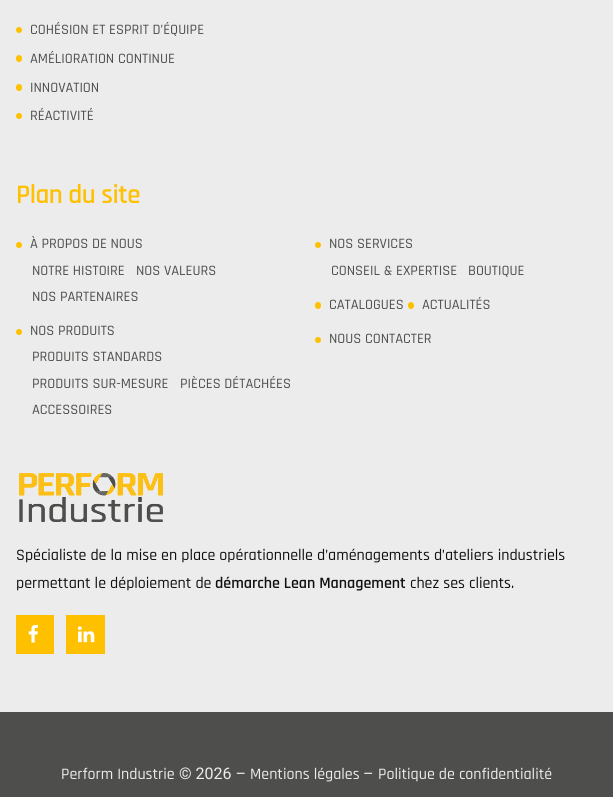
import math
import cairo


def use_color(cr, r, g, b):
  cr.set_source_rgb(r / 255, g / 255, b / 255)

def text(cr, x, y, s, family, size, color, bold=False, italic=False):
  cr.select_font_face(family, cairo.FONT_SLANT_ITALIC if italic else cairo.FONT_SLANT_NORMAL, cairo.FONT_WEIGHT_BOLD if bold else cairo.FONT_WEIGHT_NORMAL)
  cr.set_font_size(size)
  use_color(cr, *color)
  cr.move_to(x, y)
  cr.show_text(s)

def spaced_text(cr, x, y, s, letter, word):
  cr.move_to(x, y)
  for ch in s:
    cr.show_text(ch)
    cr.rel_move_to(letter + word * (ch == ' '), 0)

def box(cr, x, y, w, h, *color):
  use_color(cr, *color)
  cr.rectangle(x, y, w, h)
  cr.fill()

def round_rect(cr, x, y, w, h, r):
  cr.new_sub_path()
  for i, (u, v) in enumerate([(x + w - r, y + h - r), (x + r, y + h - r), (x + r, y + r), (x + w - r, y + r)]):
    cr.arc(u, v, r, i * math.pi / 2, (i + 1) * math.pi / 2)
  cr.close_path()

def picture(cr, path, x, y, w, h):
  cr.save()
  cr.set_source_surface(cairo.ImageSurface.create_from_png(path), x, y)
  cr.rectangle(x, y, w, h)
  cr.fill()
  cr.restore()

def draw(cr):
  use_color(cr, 236, 236, 236)
  cr.paint()
  use_color(cr, 255, 192, 0)
  cr.arc(19, 30, 3, 0, 2 * math.pi)
  cr.fill()
  round_rect(cr, 16, 55, 6, 7, 3)
  cr.fill()
  round_rect(cr, 16, 84, 6, 7, 3)
  cr.fill()
  cr.arc(19, 116, 3, 0, 2 * math.pi)
  cr.fill()
  cr.arc(19, 245, 3, 0, 2 * math.pi)
  cr.fill()
  cr.arc(318, 245, 3, 0, 2 * math.pi)
  cr.fill()
  round_rect(cr, 315, 302, 6, 7, 3)
  cr.fill()
  round_rect(cr, 408, 302, 6, 7, 3)
  cr.fill()
  cr.arc(19, 332, 3, 0, 2 * math.pi)
  cr.fill()
  cr.arc(318, 340, 3, 0, 2 * math.pi)
  cr.fill()
  picture(cr, "img_01.png", 19, 473, 144, 49)
  box(cr, 16, 615, 38, 39, 255, 192, 0)
  picture(cr, "img_02.png", 28, 625, 10, 18)
  box(cr, 66, 615, 39, 39, 255, 192, 0)
  picture(cr, "img_03.png", 78, 626, 17, 17)
  box(cr, 0, 712, 613, 85, 78, 78, 77)
  text(cr, 30, 34, "COHÉSION ET ESPRIT D’ÉQUIPE", "Rajdhani Medium", 14.4, (78, 78, 77))
  text(cr, 30, 63, "AMÉLIORATION CONTINUE", "Rajdhani Medium", 14.4, (78, 78, 77))
  text(cr, 30, 92, "INNOVATION", "Rajdhani Medium", 14.4, (78, 78, 77))
  text(cr, 30, 120, "RÉACTIVITÉ", "Rajdhani Medium", 14.4, (78, 78, 77))
  cr.select_font_face("Rajdhani SemiBold")
  cr.set_font_size(27)
  use_color(cr, 255, 192, 0)
  spaced_text(cr, 16, 203, "Plan du site", -0.5, 0)
  text(cr, 30, 248, "À PROPOS DE NOUS", "Rajdhani Medium", 14.4, (78, 78, 77))
  text(cr, 32, 275, "NOTRE HISTOIRE", "Rajdhani Medium", 14.4, (78, 78, 77))
  text(cr, 136, 275, "NOS VALEURS", "Rajdhani Medium", 14.4, (78, 78, 77))
  text(cr, 32, 301, "NOS PARTENAIRES", "Rajdhani Medium", 14.4, (78, 78, 77))
  text(cr, 329, 248, "NOS SERVICES", "Rajdhani Medium", 14.4, (78, 78, 77))
  text(cr, 331, 275, "CONSEIL & EXPERTISE", "Rajdhani Medium", 14.4, (78, 78, 77))
  text(cr, 468, 275, "BOUTIQUE", "Rajdhani Medium", 14.4, (78, 78, 77))
  text(cr, 329, 309, "CATALOGUES", "Rajdhani Medium", 14.4, (78, 78, 77))
  text(cr, 422, 309, "ACTUALITÉS", "Rajdhani Medium", 14.4, (78, 78, 77))
  text(cr, 30, 335, "NOS PRODUITS", "Rajdhani Medium", 14.4, (78, 78, 77))
  text(cr, 32, 361, "PRODUITS STANDARDS", "Rajdhani Medium", 14.4, (78, 78, 77))
  text(cr, 32, 388, "PRODUITS SUR-MESURE", "Rajdhani Medium", 14.4, (78, 78, 77))
  text(cr, 180, 388, "PIÈCES DÉTACHÉES", "Rajdhani Medium", 14.4, (78, 78, 77))
  text(cr, 32, 414, "ACCESSOIRES", "Rajdhani Medium", 14.4, (78, 78, 77))
  text(cr, 329, 343, "NOUS CONTACTER", "Rajdhani Medium", 14.4, (78, 78, 77))
  text(cr, 16, 560, "Spécialiste de la mise en place opérationnelle d’aménagements d’ateliers industriels", "Rajdhani Medium", 16, (17, 17, 17))
  text(cr, 16, 588, "permettant le déploiement de", "Rajdhani Medium", 16, (17, 17, 17))
  text(cr, 215, 588, "démarche Lean Management", "Rajdhani SemiBold", 16, (17, 17, 17))
  text(cr, 410, 588, "chez ses clients.", "Rajdhani Medium", 16, (17, 17, 17))
  text(cr, 61, 779, "Perform Industrie", "Rajdhani Medium", 16, (236, 236, 236))
  text(cr, 179, 779, "© 2026 –", "Roboto", 16, (236, 236, 236))
  text(cr, 250, 779, "Mentions légales", "Rajdhani Medium", 16, (236, 236, 236))
  text(cr, 363, 779, "–", "Roboto", 16, (236, 236, 236))
  text(cr, 378, 779, "Politique de confidentialité", "Rajdhani Medium", 16, (236, 236, 236))


surface = cairo.ImageSurface(cairo.FORMAT_RGB24, 613, 797)
cr = cairo.Context(surface)
options = cairo.FontOptions()
options.set_hint_metrics(cairo.HINT_METRICS_OFF)
options.set_hint_style(cairo.HINT_STYLE_NONE)
cr.set_font_options(options)
cr.set_miter_limit(4)
draw(cr)
surface.write_to_png("out.png")
